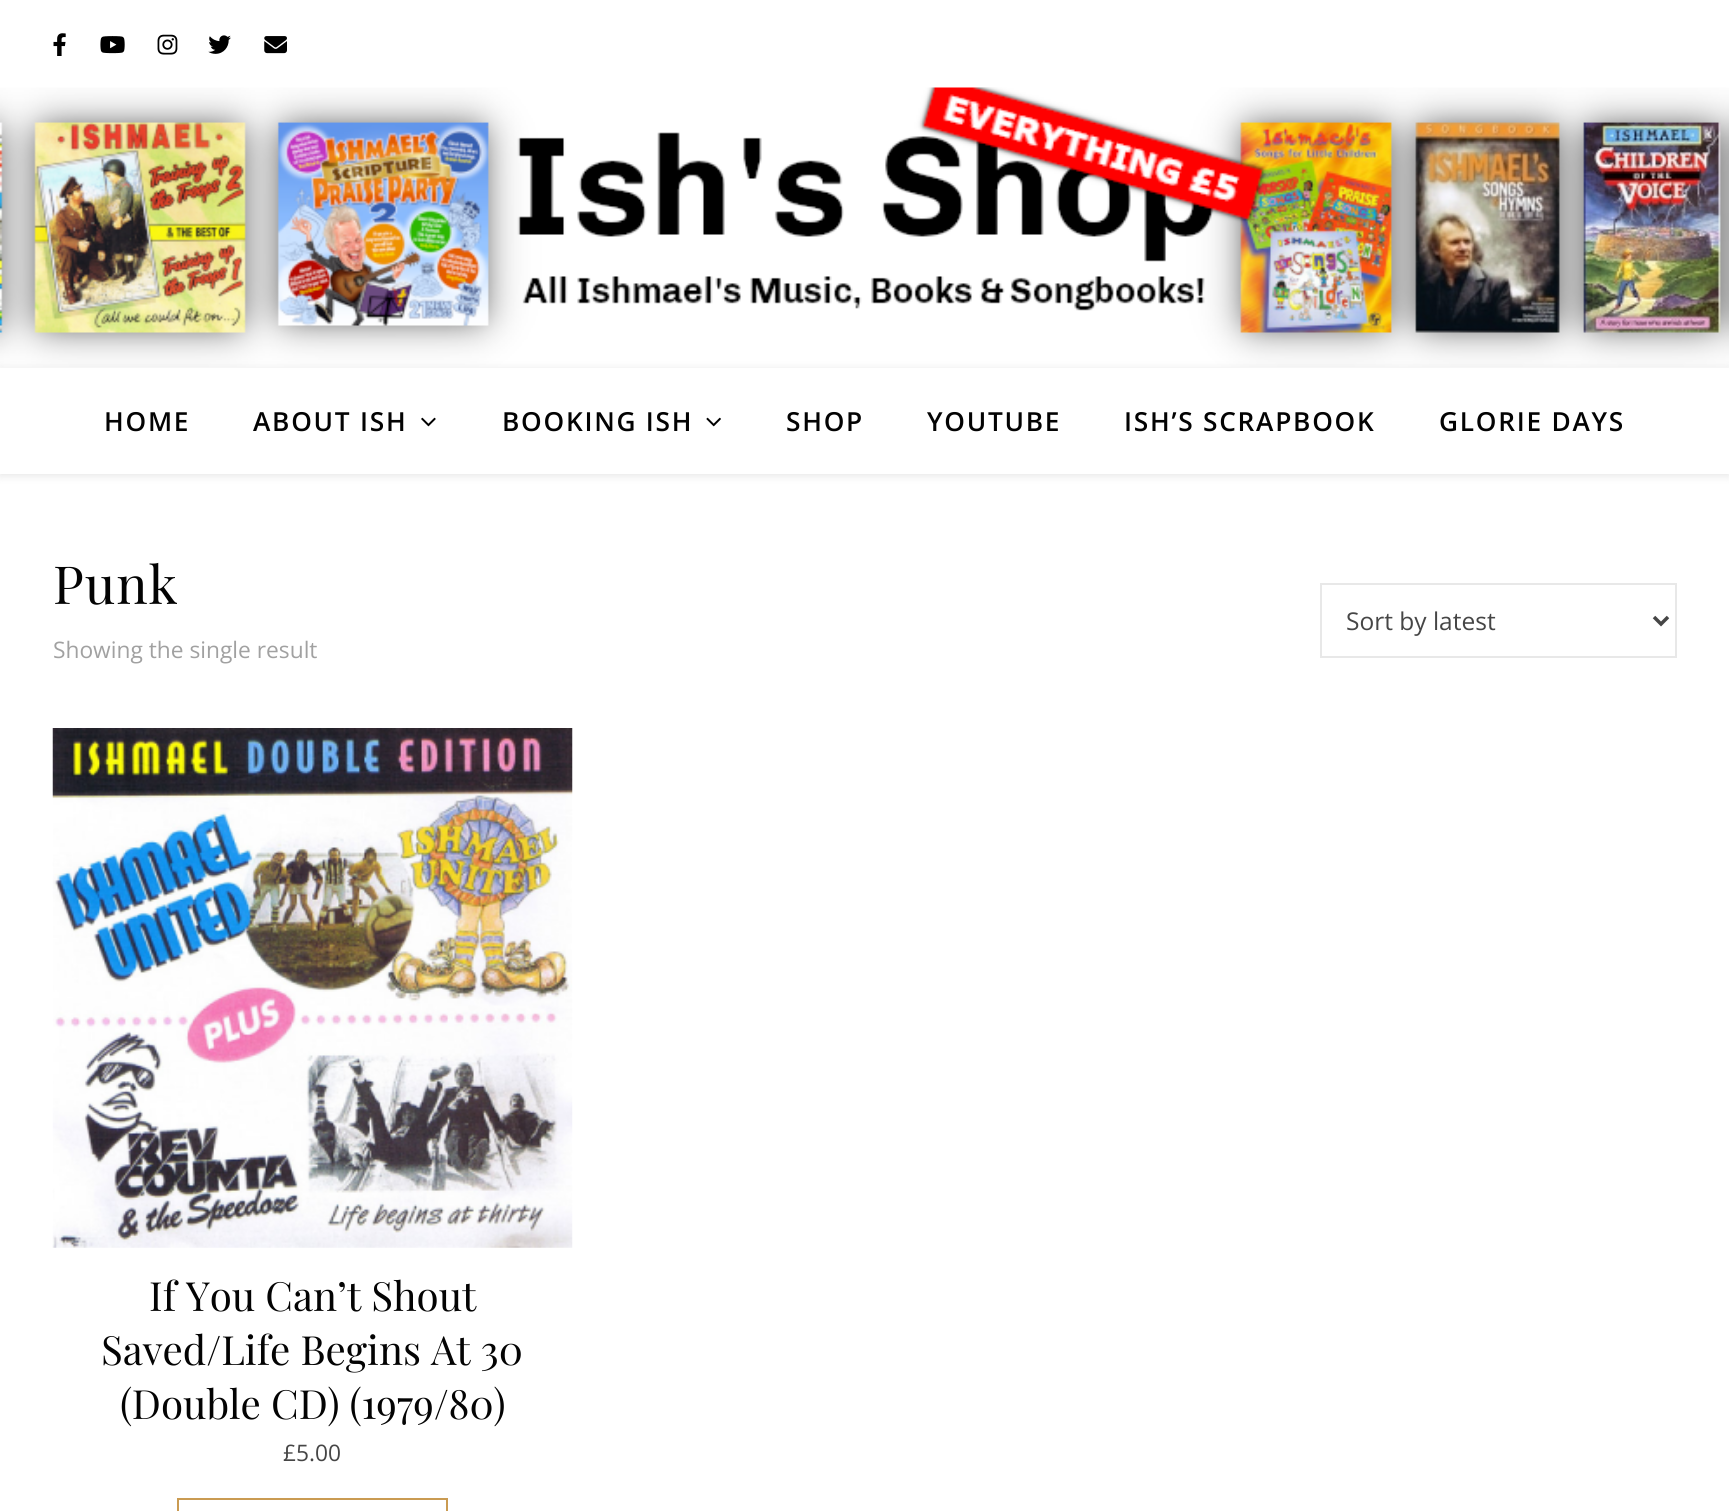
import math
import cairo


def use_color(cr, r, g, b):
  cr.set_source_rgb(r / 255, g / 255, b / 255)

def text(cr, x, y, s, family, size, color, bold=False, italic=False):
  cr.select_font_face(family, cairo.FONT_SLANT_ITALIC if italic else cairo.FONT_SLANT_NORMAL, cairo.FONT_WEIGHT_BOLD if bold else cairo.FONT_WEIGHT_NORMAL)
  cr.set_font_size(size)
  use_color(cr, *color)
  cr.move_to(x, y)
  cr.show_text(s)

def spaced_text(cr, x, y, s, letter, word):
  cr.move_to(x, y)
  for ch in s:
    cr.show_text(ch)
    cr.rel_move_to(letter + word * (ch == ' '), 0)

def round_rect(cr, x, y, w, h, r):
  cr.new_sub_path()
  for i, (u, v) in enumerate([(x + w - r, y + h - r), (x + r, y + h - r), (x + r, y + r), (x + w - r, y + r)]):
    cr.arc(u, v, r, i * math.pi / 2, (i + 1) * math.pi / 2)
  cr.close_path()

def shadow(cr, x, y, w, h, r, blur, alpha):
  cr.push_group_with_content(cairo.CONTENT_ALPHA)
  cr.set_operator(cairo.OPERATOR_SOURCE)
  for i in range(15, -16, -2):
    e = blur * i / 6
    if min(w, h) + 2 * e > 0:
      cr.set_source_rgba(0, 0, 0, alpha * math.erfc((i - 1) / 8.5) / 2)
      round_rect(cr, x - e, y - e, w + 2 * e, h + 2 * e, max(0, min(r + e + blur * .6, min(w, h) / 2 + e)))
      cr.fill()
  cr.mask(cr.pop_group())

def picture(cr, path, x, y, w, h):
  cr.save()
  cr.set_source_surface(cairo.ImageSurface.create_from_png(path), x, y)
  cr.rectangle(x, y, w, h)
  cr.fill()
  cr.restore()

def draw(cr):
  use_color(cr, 255, 255, 255)
  cr.paint()
  picture(cr, "img_01.png", 53, 33, 13, 23)
  picture(cr, "img_02.png", 100, 36, 25, 18)
  picture(cr, "img_03.png", 157, 34, 21, 21)
  picture(cr, "img_04.png", 208, 35, 23, 19)
  picture(cr, "img_05.png", 264, 36, 23, 18)
  picture(cr, "img_06.png", 0, 87, 1729, 280)
  cr.save()
  cr.set_fill_rule(cairo.FILL_RULE_EVEN_ODD)
  cr.new_path()
  cr.move_to(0, 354)
  cr.line_to(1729, 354)
  cr.line_to(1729, 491)
  cr.line_to(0, 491)
  cr.close_path()
  cr.move_to(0, 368)
  cr.line_to(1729, 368)
  cr.line_to(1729, 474)
  cr.line_to(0, 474)
  cr.close_path()
  cr.clip()
  use_color(cr, 0, 0, 0)
  shadow(cr, 0, 369, 1729, 107, 0, 4.5, 0.1)
  cr.restore()
  picture(cr, "img_07.png", 421, 417, 15, 10)
  picture(cr, "img_08.png", 706, 417, 15, 10)
  cr.rectangle(1321, 584, 355, 73)
  use_color(cr, 232, 232, 232)
  cr.stroke()
  cr.new_path()
  cr.move_to(1654, 617)
  cr.line_to(1661, 624)
  cr.line_to(1668, 617)
  use_color(cr, 70, 70, 70)
  cr.set_line_width(3.5)
  cr.stroke()
  picture(cr, "img_09.png", 52, 728, 521, 520)
  cr.rectangle(178, 1499, 269, 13)
  use_color(cr, 202, 155, 82)
  cr.set_line_width(2)
  cr.stroke()
  cr.select_font_face("Open Sans SemiBold")
  cr.set_font_size(26.25)
  use_color(cr, 3, 3, 3)
  spaced_text(cr, 104, 431, "HOME", 1.75, 0)
  spaced_text(cr, 253, 431, "ABOUT ISH", 1.75, 0)
  spaced_text(cr, 502, 431, "BOOKING ISH", 1.75, 0)
  spaced_text(cr, 786, 431, "SHOP", 1.75, 0)
  spaced_text(cr, 927, 431, "YOUTUBE", 1.75, 0)
  spaced_text(cr, 1124, 431, "ISH’S SCRAPBOOK", 1.75, 0)
  spaced_text(cr, 1439, 431, "GLORIE DAYS", 1.75, 0)
  cr.select_font_face("Playfair Display")
  cr.set_font_size(52.5)
  spaced_text(cr, 53, 604, "Punk", 1, 0)
  text(cr, 1346, 630, "Sort by latest", "Open Sans", 24.5, (70, 70, 70))
  text(cr, 53, 658, "Showing the single result", "Open Sans", 22.75, (161, 161, 161))
  text(cr, 149, 1311, "If You Can’t Shout", "Playfair Display", 40.25, (3, 3, 3))
  text(cr, 101, 1365, "Saved/Life Begins At 30", "Playfair Display", 40.25, (3, 3, 3))
  text(cr, 120, 1419, "(Double CD) (1979/80)", "Playfair Display", 40.25, (3, 3, 3))
  text(cr, 283, 1461, "£5.00", "Open Sans", 22.75, (70, 70, 70))


surface = cairo.ImageSurface(cairo.FORMAT_RGB24, 1729, 1511)
cr = cairo.Context(surface)
options = cairo.FontOptions()
options.set_hint_metrics(cairo.HINT_METRICS_OFF)
options.set_hint_style(cairo.HINT_STYLE_NONE)
cr.set_font_options(options)
cr.set_miter_limit(4)
draw(cr)
surface.write_to_png("out.png")
